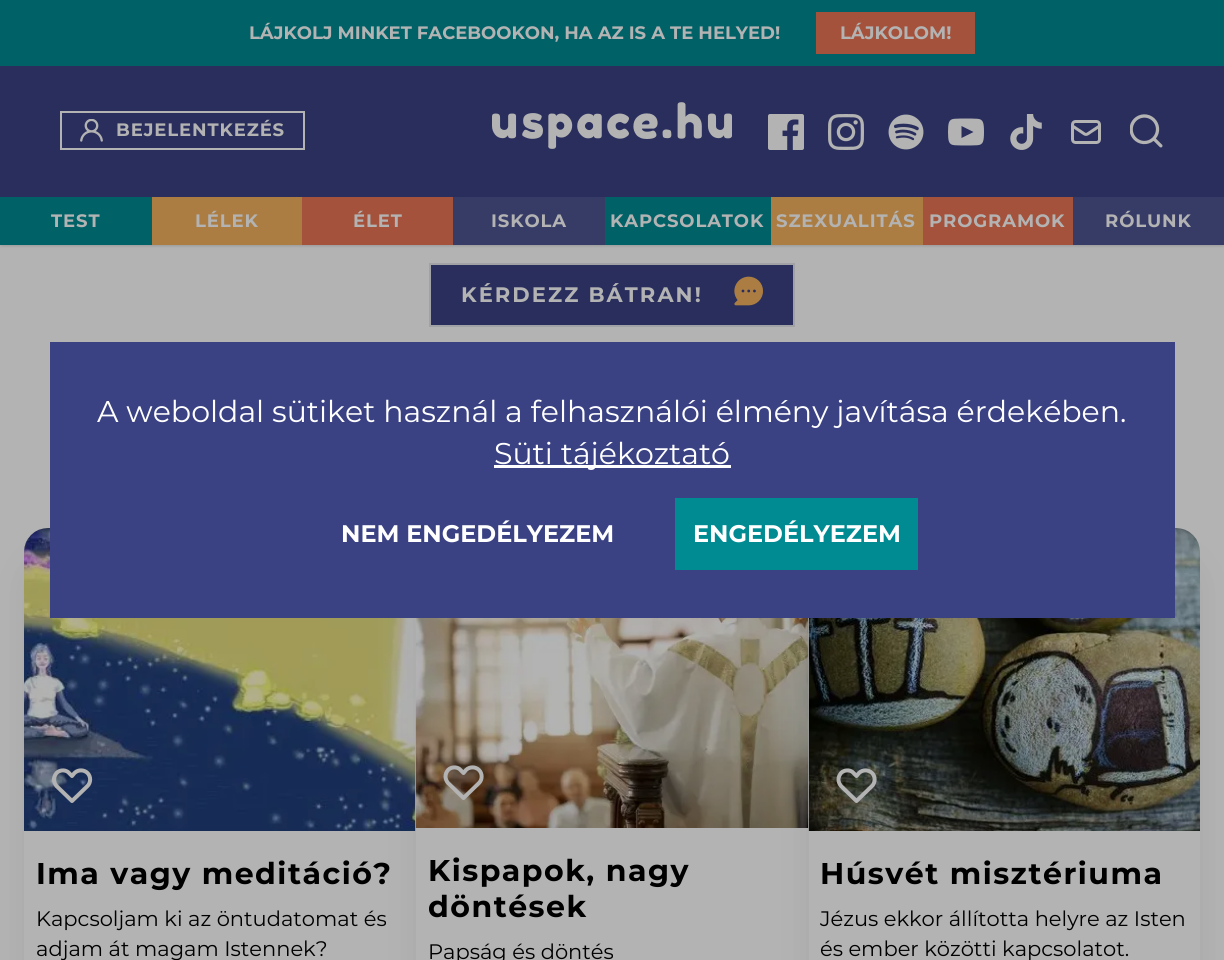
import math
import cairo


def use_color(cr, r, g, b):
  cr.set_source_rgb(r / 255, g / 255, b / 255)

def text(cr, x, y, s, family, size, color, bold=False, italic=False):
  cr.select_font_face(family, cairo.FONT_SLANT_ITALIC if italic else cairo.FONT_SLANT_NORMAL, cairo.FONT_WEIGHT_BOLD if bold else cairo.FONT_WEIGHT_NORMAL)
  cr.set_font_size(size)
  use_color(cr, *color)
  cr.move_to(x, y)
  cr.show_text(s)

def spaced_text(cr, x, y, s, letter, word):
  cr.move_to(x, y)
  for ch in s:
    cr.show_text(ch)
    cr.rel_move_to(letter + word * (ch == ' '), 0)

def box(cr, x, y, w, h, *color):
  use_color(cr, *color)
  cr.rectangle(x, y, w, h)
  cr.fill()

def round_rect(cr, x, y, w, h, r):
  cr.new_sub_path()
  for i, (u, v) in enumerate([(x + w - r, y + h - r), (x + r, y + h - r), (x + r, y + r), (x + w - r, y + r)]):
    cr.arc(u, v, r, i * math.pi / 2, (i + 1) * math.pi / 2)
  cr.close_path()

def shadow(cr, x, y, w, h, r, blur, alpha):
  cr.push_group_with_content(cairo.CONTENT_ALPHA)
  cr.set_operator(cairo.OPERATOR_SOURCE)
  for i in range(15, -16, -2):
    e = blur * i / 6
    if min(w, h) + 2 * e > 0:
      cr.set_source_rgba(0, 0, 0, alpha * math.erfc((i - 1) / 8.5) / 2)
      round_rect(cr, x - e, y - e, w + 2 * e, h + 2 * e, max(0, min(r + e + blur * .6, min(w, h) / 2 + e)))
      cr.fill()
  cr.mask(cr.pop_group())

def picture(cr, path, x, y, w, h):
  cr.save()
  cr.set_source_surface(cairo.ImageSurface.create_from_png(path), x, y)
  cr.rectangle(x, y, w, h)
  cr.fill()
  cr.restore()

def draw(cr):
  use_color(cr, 179, 179, 179)
  cr.paint()
  use_color(cr, 0, 0, 0)
  shadow(cr, 2, 69, 1221, 176, 0, 1.5, 0.1)
  shadow(cr, 0, 68, 1224, 178, 0, 2, 0.1)
  box(cr, 0, 0, 1224, 66, 0, 97, 103)
  box(cr, 816, 12, 159, 42, 164, 82, 59)
  box(cr, 0, 66, 1224, 131, 41, 46, 92)
  cr.rectangle(61, 112, 243, 37)
  use_color(cr, 179, 179, 179)
  cr.stroke()
  picture(cr, "img_01.png", 80, 119, 23, 23)
  picture(cr, "img_02.png", 492, 102, 240, 47)
  picture(cr, "img_03.png", 768, 114, 36, 36)
  picture(cr, "img_04.png", 828, 114, 36, 36)
  picture(cr, "img_05.png", 888, 114, 36, 36)
  picture(cr, "img_06.png", 948, 118, 36, 28)
  picture(cr, "img_07.png", 1010, 114, 32, 36)
  picture(cr, "img_08.png", 1071, 120, 30, 24)
  picture(cr, "img_09.png", 1130, 114, 33, 34)
  box(cr, 0, 197, 152, 48, 0, 97, 103)
  box(cr, 152, 197, 150, 48, 171, 125, 67)
  box(cr, 302, 197, 151, 48, 164, 82, 59)
  box(cr, 453, 197, 152, 48, 55, 60, 103)
  box(cr, 605, 197, 166, 48, 0, 97, 103)
  box(cr, 771, 197, 152, 48, 171, 125, 67)
  box(cr, 923, 197, 150, 48, 164, 82, 59)
  box(cr, 1073, 197, 151, 48, 55, 60, 103)
  use_color(cr, 41, 46, 92)
  cr.rectangle(430, 264, 364, 62)
  cr.fill_preserve()
  use_color(cr, 160, 162, 165)
  cr.stroke()
  picture(cr, "img_10.png", 734, 276, 29, 30)
  use_color(cr, 0, 0, 0)
  shadow(cr, 32, 566, 376, 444, 17, 19, 0.1)
  use_color(cr, 179, 179, 179)
  round_rect(cr, 24, 528, 392, 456, 24)
  cr.fill()
  picture(cr, "img_11.png", 24, 528, 392, 303)
  use_color(cr, 0, 0, 0)
  shadow(cr, 423, 563, 378, 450, 17, 19, 0.1)
  box(cr, 416, 618, 393, 342, 179, 179, 179)
  picture(cr, "img_12.png", 415, 618, 394, 210)
  use_color(cr, 0, 0, 0)
  shadow(cr, 816, 566, 377, 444, 17, 19, 0.1)
  use_color(cr, 179, 179, 179)
  round_rect(cr, 809, 528, 391, 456, 24)
  cr.fill()
  picture(cr, "img_13.png", 808, 528, 392, 303)
  box(cr, 50, 342, 1125, 276, 58, 66, 132)
  box(cr, 494, 465, 237, 3, 255, 255, 255)
  box(cr, 675, 498, 243, 72, 0, 139, 147)
  cr.new_path()
  cr.move_to(56.5, 773)
  cr.curve_to(55, 775, 54, 777, 54, 779.5)
  cr.curve_to(54, 782, 55, 784, 56.5, 786)
  cr.line_to(72, 801)
  cr.line_to(87.5, 786)
  cr.curve_to(91, 782.5, 91, 776.5, 87.5, 773)
  cr.curve_to(84, 769.5, 78, 769.5, 74.5, 773)
  cr.line_to(72, 776)
  cr.line_to(68, 772)
  cr.curve_to(64.5, 769.5, 59.5, 770, 56.5, 773)
  cr.close_path()
  use_color(cr, 179, 179, 179)
  cr.set_line_width(4)
  cr.set_line_cap(cairo.LINE_CAP_ROUND)
  cr.set_line_join(cairo.LINE_JOIN_ROUND)
  cr.stroke()
  cr.new_path()
  cr.move_to(448, 770)
  cr.curve_to(446.5, 772, 445.5, 774, 445.5, 776.5)
  cr.curve_to(445.5, 779, 446.5, 781, 448, 783)
  cr.line_to(463.5, 798)
  cr.line_to(479, 783)
  cr.curve_to(482.5, 779.5, 482.5, 773.5, 479, 770)
  cr.curve_to(475.5, 766.5, 469.5, 766.5, 466, 770)
  cr.line_to(463.5, 773)
  cr.line_to(459.5, 769)
  cr.curve_to(456, 766.5, 451, 767, 448, 770)
  cr.close_path()
  cr.stroke()
  cr.new_path()
  cr.move_to(841, 773)
  cr.curve_to(839.5, 775, 838.5, 777, 838.5, 779.5)
  cr.curve_to(838.5, 782, 839.5, 784, 841, 786)
  cr.line_to(856.5, 801)
  cr.line_to(872, 786)
  cr.curve_to(875.5, 782.5, 875.5, 776.5, 872, 773)
  cr.curve_to(868.5, 769.5, 862.5, 769.5, 859, 773)
  cr.line_to(856.5, 776)
  cr.line_to(852.5, 772)
  cr.curve_to(849, 769.5, 844, 770, 841, 773)
  cr.close_path()
  cr.stroke()
  text(cr, 249, 39, "LÁJKOLJ MINKET FACEBOOKON, HA AZ IS A TE HELYED!", "Montserrat", 18, (179, 179, 179), bold=True)
  text(cr, 840, 39, "LÁJKOLOM!", "Montserrat", 18, (179, 179, 179), bold=True)
  spaced_text(cr, 116, 136, "BEJELENTKEZÉS", 0.9, 0)
  spaced_text(cr, 51, 227, "TEST", 0.9, 0)
  spaced_text(cr, 195, 227, "LÉLEK", 0.9, 0)
  spaced_text(cr, 353, 227, "ÉLET", 0.9, 0)
  spaced_text(cr, 491, 227, "ISKOLA", 0.9, 0)
  spaced_text(cr, 610, 227, "KAPCSOLATOK", 0.9, 0)
  spaced_text(cr, 776, 227, "SZEXUALITÁS", 0.9, 0)
  spaced_text(cr, 929, 227, "PROGRAMOK", 0.9, 0)
  spaced_text(cr, 1105, 227, "RÓLUNK", 0.9, 0)
  cr.set_font_size(21)
  spaced_text(cr, 461, 302, "KÉRDEZZ BÁTRAN!", 2.1, 0)
  text(cr, 97, 422, "A weboldal sütiket használ a felhasználói élmény javítása érdekében.", "Montserrat", 30, (255, 255, 255))
  text(cr, 494, 464, "Süti tájékoztató", "Montserrat", 30, (255, 255, 255))
  text(cr, 341, 542, "NEM ENGEDÉLYEZEM", "Montserrat", 24, (255, 255, 255), bold=True)
  text(cr, 693, 542, "ENGEDÉLYEZEM", "Montserrat", 24, (255, 255, 255), bold=True)
  cr.set_font_size(30)
  use_color(cr, 0, 0, 0)
  spaced_text(cr, 36, 884, "Ima vagy meditáció?", 1.5, 0)
  text(cr, 36, 926, "Kapcsoljam ki az öntudatomat és", "Montserrat", 21, (0, 0, 0))
  text(cr, 36, 956, "adjam át magam Istennek?", "Montserrat", 21, (0, 0, 0))
  cr.select_font_face("Montserrat", cairo.FONT_SLANT_NORMAL, cairo.FONT_WEIGHT_BOLD)
  cr.set_font_size(30)
  spaced_text(cr, 428, 881, "Kispapok, nagy", 1.5, 0)
  spaced_text(cr, 428, 917, "döntések", 1.5, 0)
  text(cr, 428, 959, "Papság és döntés", "Montserrat", 21, (0, 0, 0))
  cr.select_font_face("Montserrat", cairo.FONT_SLANT_NORMAL, cairo.FONT_WEIGHT_BOLD)
  cr.set_font_size(30)
  spaced_text(cr, 820, 884, "Húsvét misztériuma", 1.5, 0)
  text(cr, 820, 926, "Jézus ekkor állította helyre az Isten", "Montserrat", 21, (0, 0, 0))
  text(cr, 820, 956, "és ember közötti kapcsolatot.", "Montserrat", 21, (0, 0, 0))


surface = cairo.ImageSurface(cairo.FORMAT_RGB24, 1224, 960)
cr = cairo.Context(surface)
options = cairo.FontOptions()
options.set_hint_metrics(cairo.HINT_METRICS_OFF)
options.set_hint_style(cairo.HINT_STYLE_NONE)
cr.set_font_options(options)
cr.set_miter_limit(4)
draw(cr)
surface.write_to_png("out.png")
